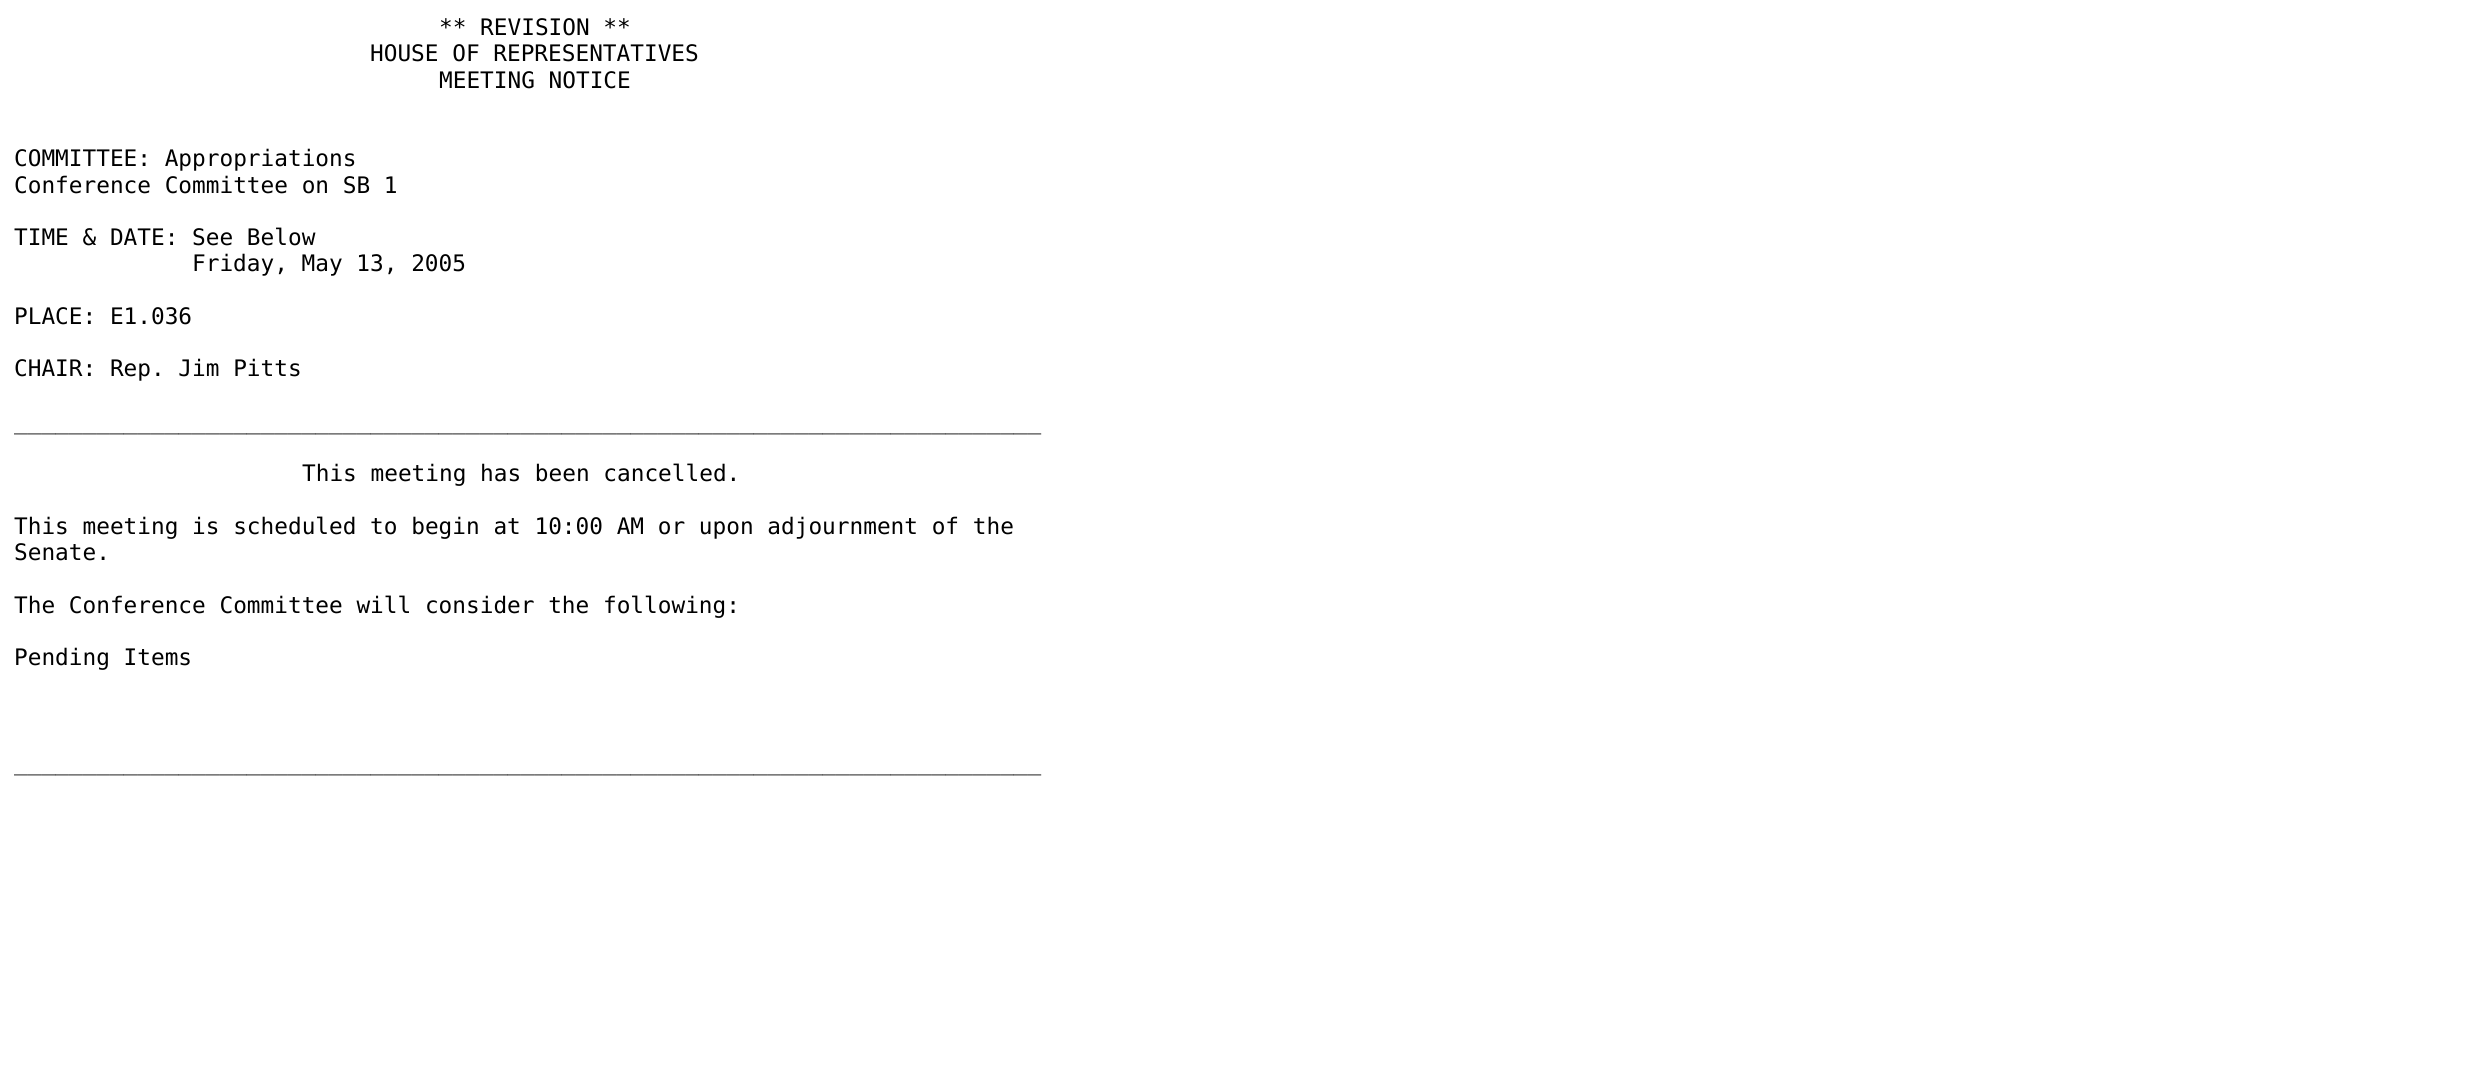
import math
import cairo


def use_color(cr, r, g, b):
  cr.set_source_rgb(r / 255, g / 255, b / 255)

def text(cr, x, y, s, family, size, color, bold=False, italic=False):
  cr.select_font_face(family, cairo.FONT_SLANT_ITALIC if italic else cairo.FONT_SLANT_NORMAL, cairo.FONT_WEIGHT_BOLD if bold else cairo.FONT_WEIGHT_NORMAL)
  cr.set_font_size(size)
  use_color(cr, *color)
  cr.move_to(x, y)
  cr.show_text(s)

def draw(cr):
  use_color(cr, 255, 255, 255)
  cr.paint()
  text(cr, 439, 35, "** REVISION **", "DejaVu Sans Mono", 22.75, (0, 0, 0))
  text(cr, 370, 61, "HOUSE OF REPRESENTATIVES", "DejaVu Sans Mono", 22.75, (0, 0, 0))
  text(cr, 439, 88, "MEETING NOTICE", "DejaVu Sans Mono", 22.75, (0, 0, 0))
  text(cr, 14, 166, "COMMITTEE: Appropriations", "DejaVu Sans Mono", 22.75, (0, 0, 0))
  text(cr, 14, 193, "Conference Committee on SB 1", "DejaVu Sans Mono", 22.75, (0, 0, 0))
  text(cr, 14, 245, "TIME & DATE: See Below", "DejaVu Sans Mono", 22.75, (0, 0, 0))
  text(cr, 192, 271, "Friday, May 13, 2005", "DejaVu Sans Mono", 22.75, (0, 0, 0))
  text(cr, 14, 324, "PLACE: E1.036", "DejaVu Sans Mono", 22.75, (0, 0, 0))
  text(cr, 14, 376, "CHAIR: Rep. Jim Pitts", "DejaVu Sans Mono", 22.75, (0, 0, 0))
  text(cr, 14, 429, "___________________________________________________________________________", "DejaVu Sans Mono", 22.75, (0, 0, 0))
  text(cr, 302, 481, "This meeting has been cancelled.", "DejaVu Sans Mono", 22.75, (0, 0, 0))
  text(cr, 14, 534, "This meeting is scheduled to begin at 10:00 AM or upon adjournment of the", "DejaVu Sans Mono", 22.75, (0, 0, 0))
  text(cr, 14, 560, "Senate.", "DejaVu Sans Mono", 22.75, (0, 0, 0))
  text(cr, 14, 613, "The Conference Committee will consider the following:", "DejaVu Sans Mono", 22.75, (0, 0, 0))
  text(cr, 14, 665, "Pending Items", "DejaVu Sans Mono", 22.75, (0, 0, 0))
  text(cr, 14, 770, "___________________________________________________________________________", "DejaVu Sans Mono", 22.75, (0, 0, 0))


surface = cairo.ImageSurface(cairo.FORMAT_RGB24, 2482, 1087)
cr = cairo.Context(surface)
options = cairo.FontOptions()
options.set_hint_metrics(cairo.HINT_METRICS_OFF)
options.set_hint_style(cairo.HINT_STYLE_NONE)
cr.set_font_options(options)
cr.set_miter_limit(4)
draw(cr)
surface.write_to_png("out.png")
